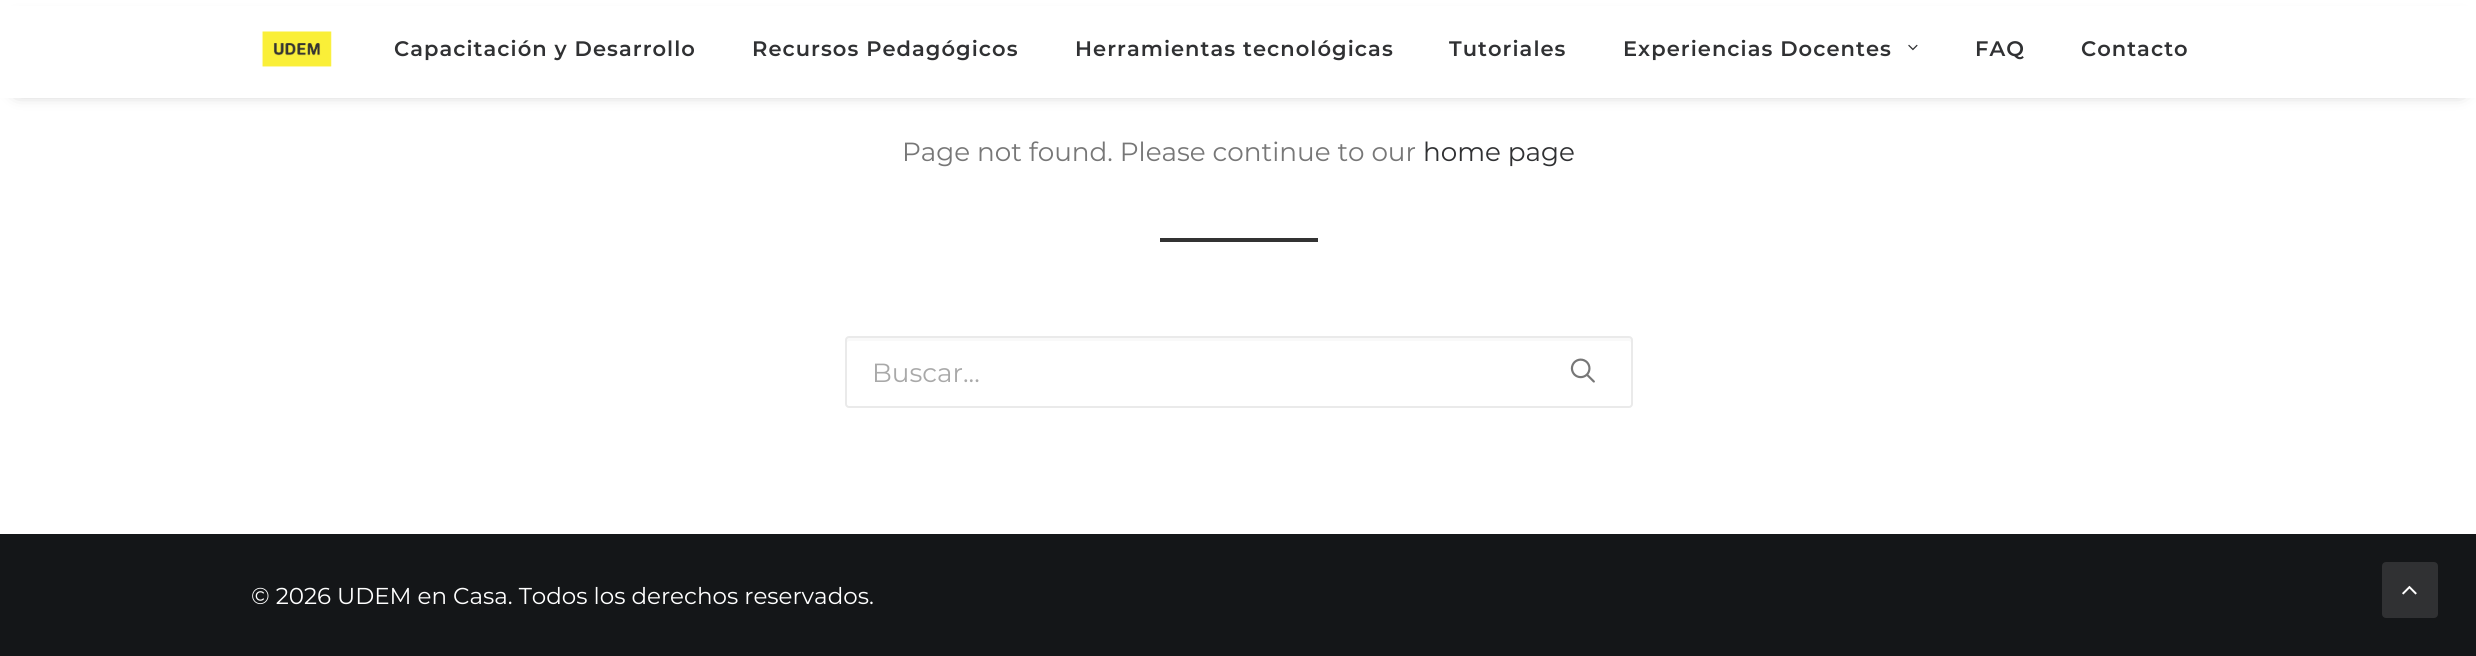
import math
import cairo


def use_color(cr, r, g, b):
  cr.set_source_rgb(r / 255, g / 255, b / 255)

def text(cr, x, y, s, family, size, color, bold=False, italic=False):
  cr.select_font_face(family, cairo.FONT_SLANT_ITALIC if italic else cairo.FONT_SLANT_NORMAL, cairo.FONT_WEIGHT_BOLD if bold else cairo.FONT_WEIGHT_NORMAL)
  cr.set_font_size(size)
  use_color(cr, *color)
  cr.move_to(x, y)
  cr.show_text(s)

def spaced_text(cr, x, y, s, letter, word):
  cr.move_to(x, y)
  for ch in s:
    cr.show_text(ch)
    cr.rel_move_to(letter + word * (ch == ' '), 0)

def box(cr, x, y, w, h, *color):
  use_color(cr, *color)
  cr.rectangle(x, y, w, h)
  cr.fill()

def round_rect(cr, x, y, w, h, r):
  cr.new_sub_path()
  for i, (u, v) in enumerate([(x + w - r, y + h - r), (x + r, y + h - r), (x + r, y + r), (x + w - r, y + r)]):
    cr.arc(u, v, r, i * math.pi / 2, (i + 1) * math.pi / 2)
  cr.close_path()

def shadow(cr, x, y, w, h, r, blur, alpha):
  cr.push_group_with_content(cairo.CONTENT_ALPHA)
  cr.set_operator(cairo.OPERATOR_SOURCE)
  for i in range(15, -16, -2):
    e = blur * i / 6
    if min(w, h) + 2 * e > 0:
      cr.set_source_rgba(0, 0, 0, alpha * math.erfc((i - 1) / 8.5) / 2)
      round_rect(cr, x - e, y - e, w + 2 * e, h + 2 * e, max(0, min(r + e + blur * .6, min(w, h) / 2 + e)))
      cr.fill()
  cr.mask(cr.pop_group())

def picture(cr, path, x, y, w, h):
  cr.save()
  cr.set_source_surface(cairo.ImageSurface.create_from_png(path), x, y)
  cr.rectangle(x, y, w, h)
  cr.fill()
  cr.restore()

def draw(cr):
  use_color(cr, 255, 255, 255)
  cr.paint()
  use_color(cr, 0, 0, 0)
  shadow(cr, 18, 25, 2443, 63, 0, 9, 0.6)
  box(cr, 0, 6, 2476, 92, 255, 255, 255)
  picture(cr, "img_01.png", 261, 31, 71, 36)
  picture(cr, "img_02.png", 1908, 44, 10, 7)
  box(cr, 1160, 238, 158, 4, 51, 51, 51)
  use_color(cr, 249, 249, 249)
  cr.new_path()
  cr.move_to(849, 341)
  cr.line_to(1629, 341)
  cr.curve_to(1630, 341, 1631, 342, 1631, 343)
  cr.line_to(1631, 339)
  cr.line_to(1630, 338)
  cr.line_to(849, 338)
  cr.curve_to(846, 338, 847, 341, 847, 343)
  cr.curve_to(847, 342, 848, 341, 849, 341)
  cr.close_path()
  cr.fill()
  round_rect(cr, 846, 337, 786, 70, 3)
  use_color(cr, 234, 234, 234)
  cr.stroke()
  picture(cr, "img_03.png", 1570, 358, 25, 25)
  box(cr, 0, 534, 2476, 122, 20, 22, 24)
  use_color(cr, 48, 49, 51)
  round_rect(cr, 2383, 563, 54, 54, 3)
  cr.fill_preserve()
  cr.stroke()
  picture(cr, "img_04.png", 2402, 585, 15, 10)
  cr.select_font_face("Montserrat SemiBold")
  cr.set_font_size(21)
  spaced_text(cr, 394, 56, "Capacitación y Desarrollo", 1.05, 0)
  spaced_text(cr, 752, 56, "Recursos Pedagógicos", 1.05, 0)
  spaced_text(cr, 1075, 56, "Herramientas tecnológicas", 1.05, 0)
  spaced_text(cr, 1449, 56, "Tutoriales", 1.05, 0)
  spaced_text(cr, 1623, 56, "Experiencias Docentes", 1.05, 0)
  spaced_text(cr, 1975, 56, "FAQ", 1.05, 0)
  spaced_text(cr, 2081, 56, "Contacto", 1.05, 0)
  text(cr, 902, 161, "Page not found. Please continue to our", "Montserrat", 26.25, (119, 119, 119))
  text(cr, 1423, 161, "home page", "Montserrat", 26.25, (48, 49, 51))
  text(cr, 872, 382, "Buscar...", "Montserrat", 26.25, (169, 169, 169))
  text(cr, 251, 604, "© 2026 UDEM en Casa. Todos los derechos reservados.", "Montserrat", 23, (255, 255, 255))


surface = cairo.ImageSurface(cairo.FORMAT_RGB24, 2476, 656)
cr = cairo.Context(surface)
options = cairo.FontOptions()
options.set_hint_metrics(cairo.HINT_METRICS_OFF)
options.set_hint_style(cairo.HINT_STYLE_NONE)
cr.set_font_options(options)
cr.set_miter_limit(4)
draw(cr)
surface.write_to_png("out.png")
